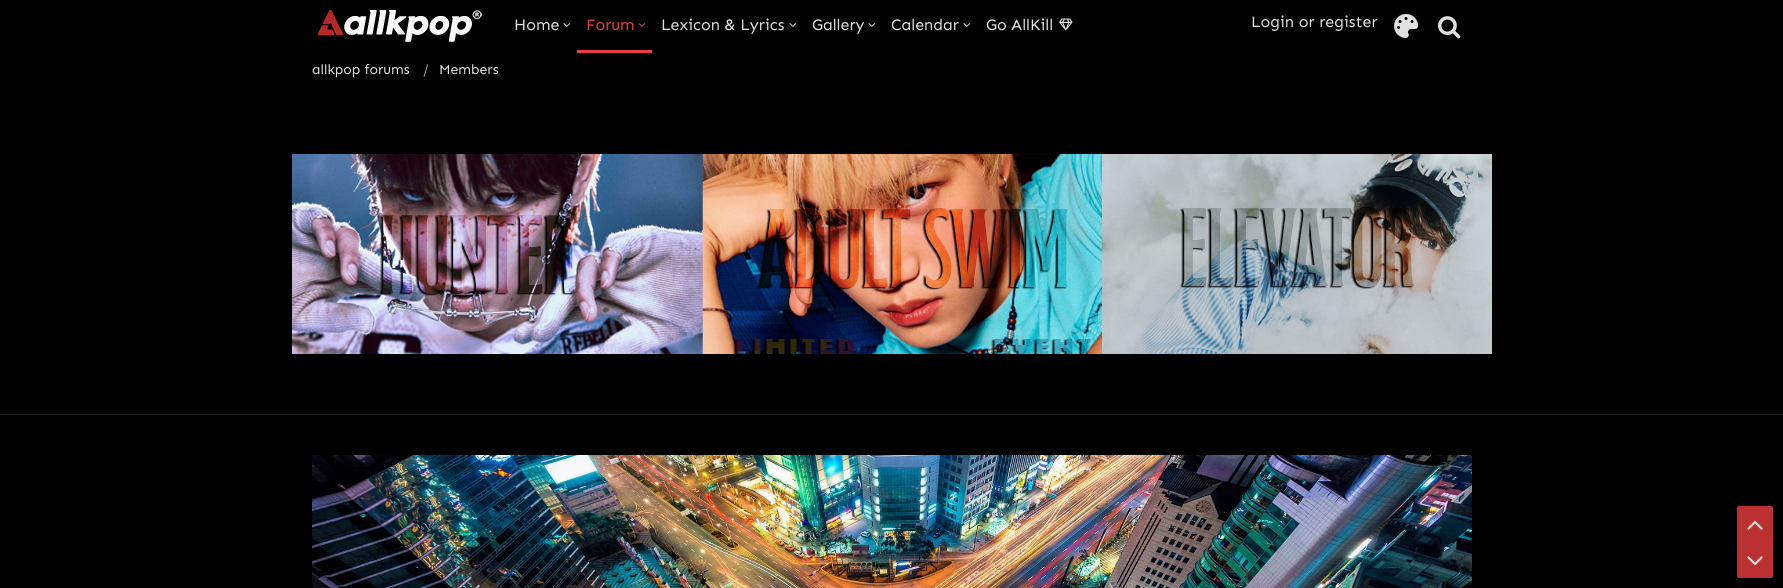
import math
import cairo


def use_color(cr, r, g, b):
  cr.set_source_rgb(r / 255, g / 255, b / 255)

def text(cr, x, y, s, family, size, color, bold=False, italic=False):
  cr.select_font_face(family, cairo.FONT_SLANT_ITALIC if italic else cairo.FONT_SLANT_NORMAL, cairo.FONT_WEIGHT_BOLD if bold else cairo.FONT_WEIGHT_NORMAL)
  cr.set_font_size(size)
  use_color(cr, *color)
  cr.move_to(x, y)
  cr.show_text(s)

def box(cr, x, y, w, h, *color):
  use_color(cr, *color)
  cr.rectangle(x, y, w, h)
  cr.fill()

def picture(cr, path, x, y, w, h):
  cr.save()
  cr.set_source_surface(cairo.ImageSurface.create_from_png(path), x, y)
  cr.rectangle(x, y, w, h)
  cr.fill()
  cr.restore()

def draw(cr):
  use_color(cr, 0, 0, 0)
  cr.paint()
  picture(cr, "img_01.png", 317, 10, 165, 32)
  picture(cr, "img_02.png", 563, 23, 8, 4)
  box(cr, 577, 50, 75, 3, 234, 61, 61)
  picture(cr, "img_03.png", 638, 23, 8, 4)
  picture(cr, "img_02.png", 789, 23, 8, 4)
  picture(cr, "img_02.png", 868, 23, 8, 4)
  picture(cr, "img_02.png", 963, 23, 8, 4)
  picture(cr, "img_04.png", 1059, 18, 14, 13)
  picture(cr, "img_05.png", 1394, 14, 24, 24)
  picture(cr, "img_06.png", 1438, 16, 23, 23)
  use_color(cr, 187, 49, 49)
  cr.new_path()
  cr.move_to(1739, 506)
  cr.line_to(1771, 506)
  cr.curve_to(1772, 506, 1773, 507, 1773, 508)
  cr.line_to(1773, 542)
  cr.line_to(1737, 542)
  cr.line_to(1737, 508)
  cr.curve_to(1737, 507, 1738, 506, 1739, 506)
  cr.close_path()
  cr.fill()
  picture(cr, "img_07.png", 1747, 520, 16, 10)
  cr.new_path()
  cr.move_to(1737, 542)
  cr.line_to(1773, 542)
  cr.line_to(1773, 576)
  cr.curve_to(1773, 577, 1772, 578, 1771, 578)
  cr.line_to(1739, 578)
  cr.curve_to(1738, 578, 1737, 577, 1737, 576)
  cr.close_path()
  cr.fill()
  picture(cr, "img_08.png", 1747, 556, 16, 10)
  box(cr, 0, 414, 1783, 1, 33, 33, 33)
  picture(cr, "img_09.png", 292, 154, 1200, 200)
  picture(cr, "img_10.png", 312, 455, 1160, 133)
  text(cr, 514, 30, "Home", "Sen", 16, (224, 224, 224))
  text(cr, 586, 30, "Forum", "Sen", 16, (234, 61, 61))
  text(cr, 661, 30, "Lexicon & Lyrics", "Sen", 16, (224, 224, 224))
  text(cr, 812, 30, "Gallery", "Sen", 16, (224, 224, 224))
  text(cr, 891, 30, "Calendar", "Sen", 16, (224, 224, 224))
  text(cr, 986, 30, "Go AllKill", "Sen", 16, (224, 224, 224))
  text(cr, 1251, 27, "Login or register", "Sen", 16, (224, 224, 224))
  text(cr, 312, 74, "allkpop forums", "Sen", 14, (224, 224, 224))
  text(cr, 423, 74, "/", "Sen", 14, (167, 167, 167))
  text(cr, 439, 74, "Members", "Sen", 14, (224, 224, 224))


surface = cairo.ImageSurface(cairo.FORMAT_RGB24, 1783, 588)
cr = cairo.Context(surface)
options = cairo.FontOptions()
options.set_hint_metrics(cairo.HINT_METRICS_OFF)
options.set_hint_style(cairo.HINT_STYLE_NONE)
cr.set_font_options(options)
cr.set_miter_limit(4)
draw(cr)
surface.write_to_png("out.png")
